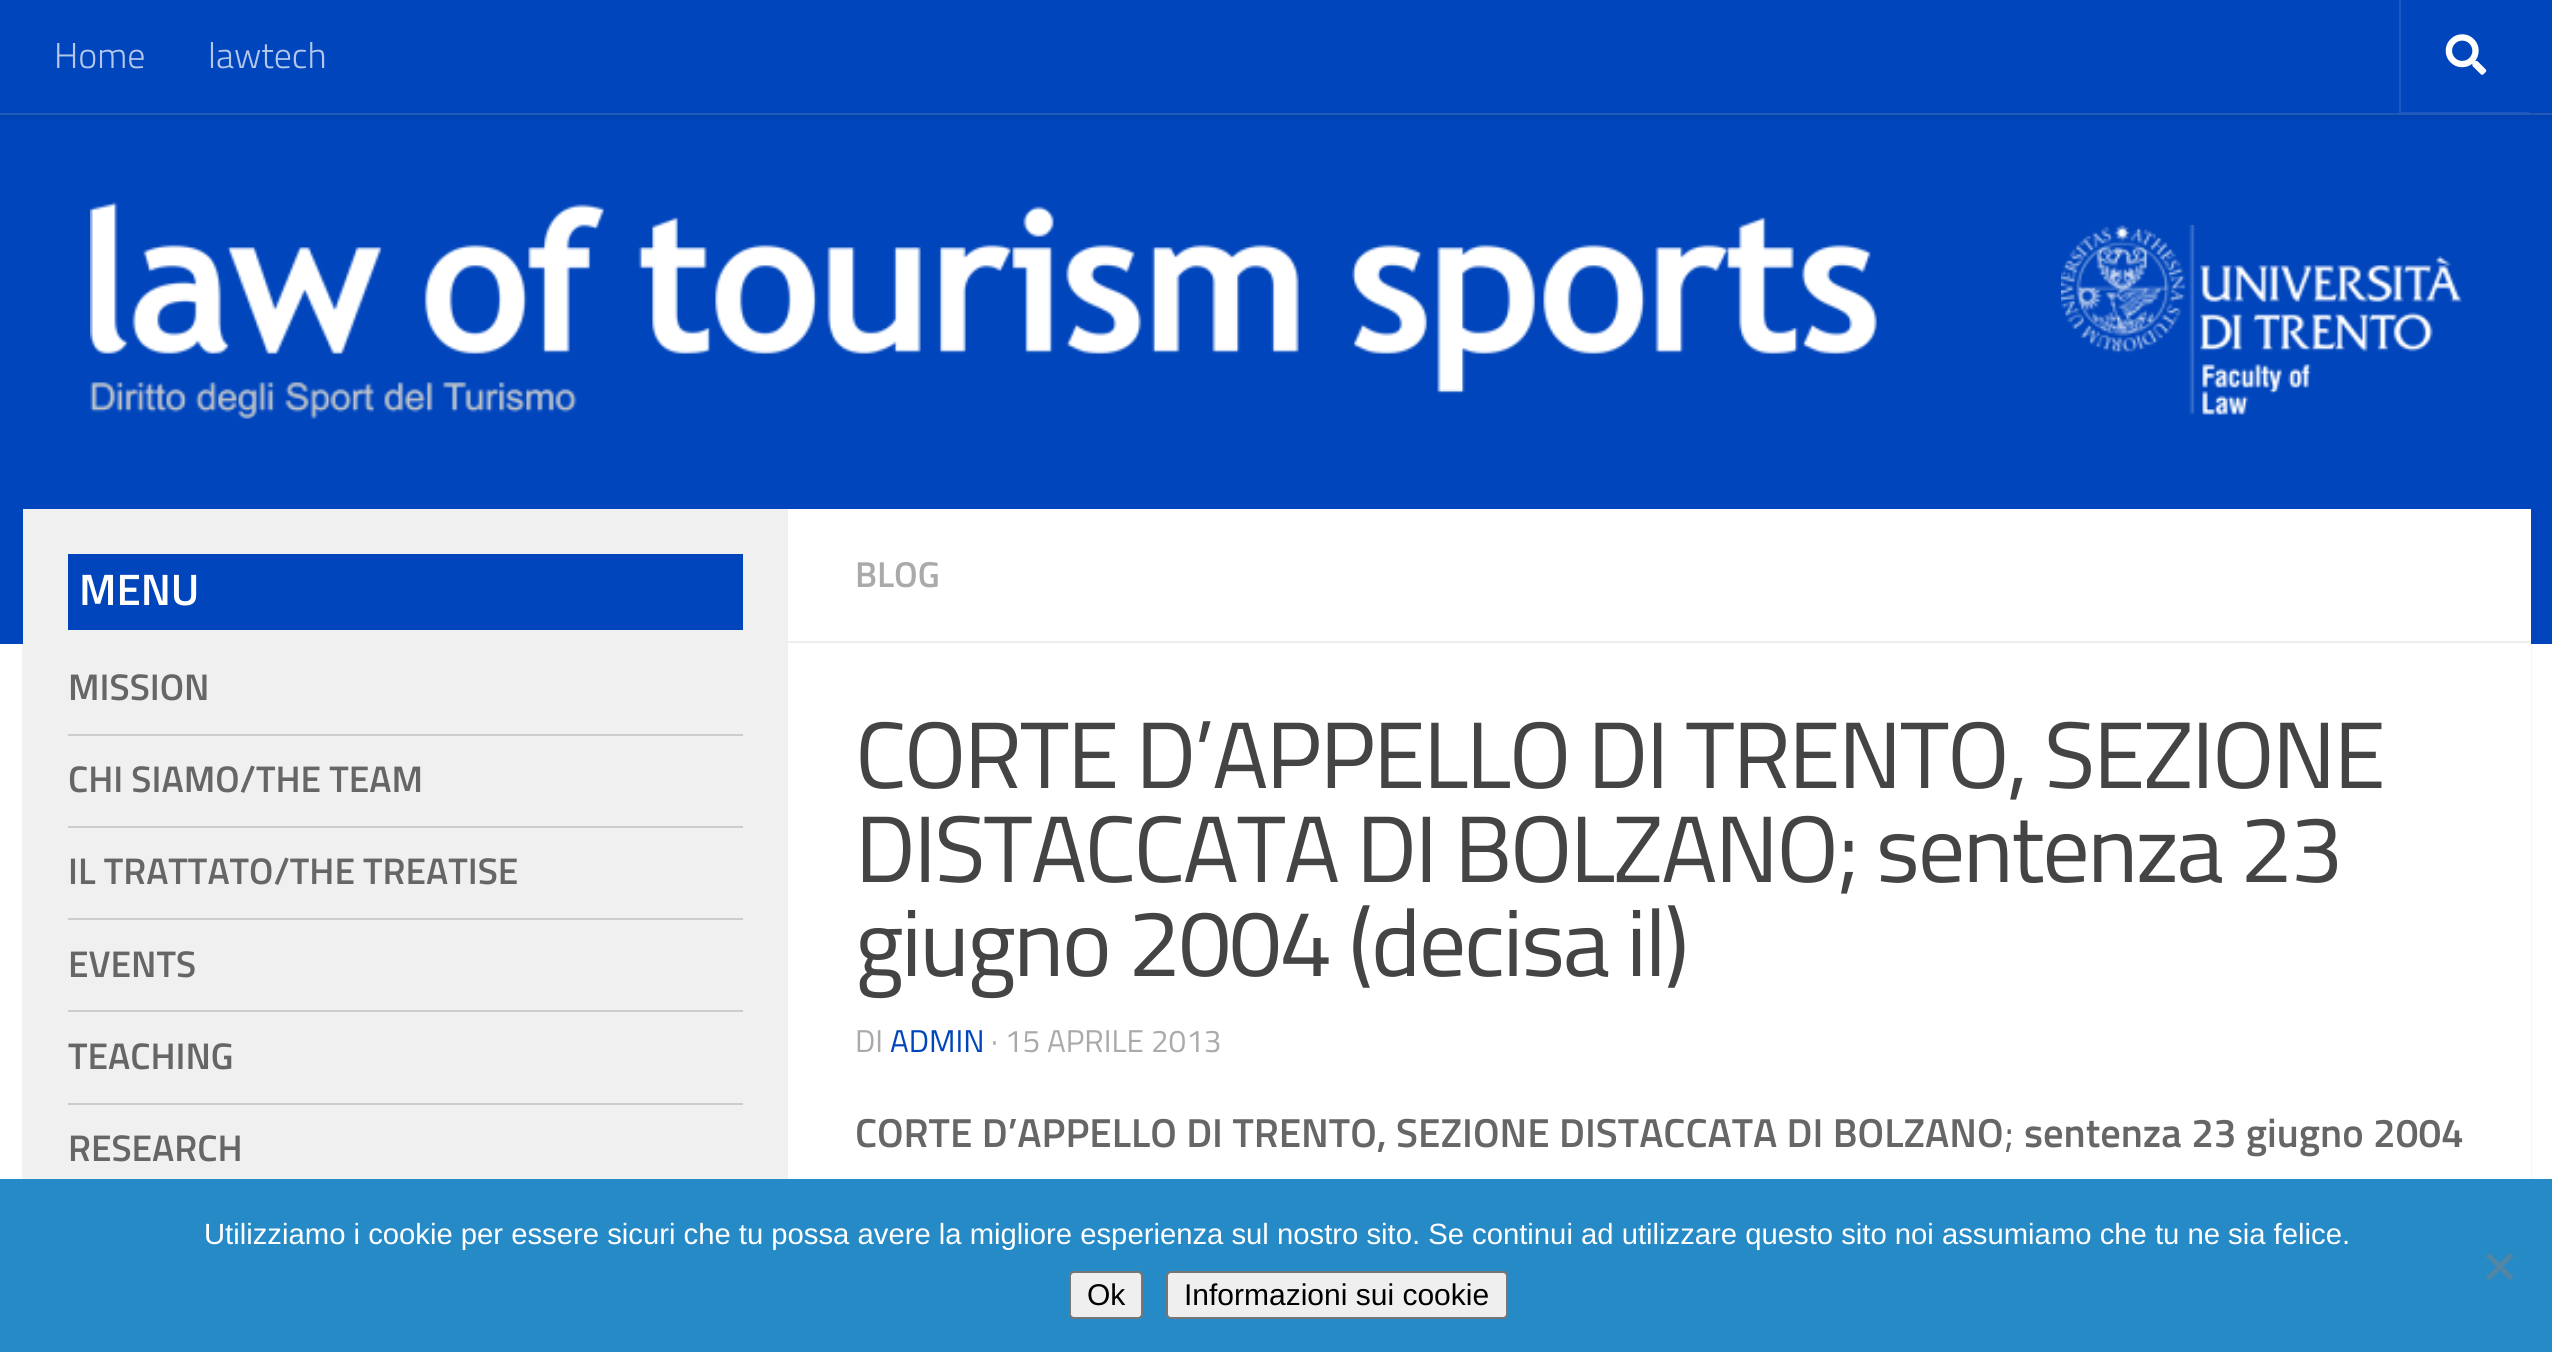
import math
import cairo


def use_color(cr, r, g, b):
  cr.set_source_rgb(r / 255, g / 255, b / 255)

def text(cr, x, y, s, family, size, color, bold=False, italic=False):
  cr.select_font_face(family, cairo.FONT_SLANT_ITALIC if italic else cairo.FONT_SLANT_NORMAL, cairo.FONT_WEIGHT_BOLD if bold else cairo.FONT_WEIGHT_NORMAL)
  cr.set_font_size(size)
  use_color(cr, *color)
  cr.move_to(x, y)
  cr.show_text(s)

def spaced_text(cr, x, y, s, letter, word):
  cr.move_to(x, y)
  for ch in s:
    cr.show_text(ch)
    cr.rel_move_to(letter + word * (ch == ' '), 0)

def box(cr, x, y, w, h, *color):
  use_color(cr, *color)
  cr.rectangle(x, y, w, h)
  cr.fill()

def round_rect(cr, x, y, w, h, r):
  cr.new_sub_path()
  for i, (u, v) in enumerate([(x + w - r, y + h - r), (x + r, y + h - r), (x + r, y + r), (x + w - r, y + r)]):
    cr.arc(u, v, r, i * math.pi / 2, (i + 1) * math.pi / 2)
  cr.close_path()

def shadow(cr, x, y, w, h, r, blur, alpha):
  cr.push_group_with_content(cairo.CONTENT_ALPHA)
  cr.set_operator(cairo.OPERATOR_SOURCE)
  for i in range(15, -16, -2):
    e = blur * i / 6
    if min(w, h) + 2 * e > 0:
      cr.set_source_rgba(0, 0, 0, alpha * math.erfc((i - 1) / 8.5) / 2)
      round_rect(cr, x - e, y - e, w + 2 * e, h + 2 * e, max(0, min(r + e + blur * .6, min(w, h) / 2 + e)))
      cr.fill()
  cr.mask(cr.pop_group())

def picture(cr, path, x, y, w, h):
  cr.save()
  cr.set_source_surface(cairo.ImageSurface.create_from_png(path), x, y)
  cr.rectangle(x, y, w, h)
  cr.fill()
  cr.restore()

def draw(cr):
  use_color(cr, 255, 255, 255)
  cr.paint()
  use_color(cr, 0, 0, 0)
  shadow(cr, 23, 511, 2508, 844, 0, 1, 0.1)
  box(cr, 0, 115, 2552, 529, 0, 69, 188)
  use_color(cr, 38, 97, 198)
  cr.new_path()
  cr.move_to(0, 112)
  cr.line_to(0, 115)
  cr.line_to(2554, 115)
  cr.line_to(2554, 2)
  cr.line_to(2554, 112)
  cr.close_path()
  cr.fill()
  use_color(cr, 0, 0, 0)
  shadow(cr, 0, 0, 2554, 113, 0, 5.5, 0.2)
  box(cr, 0, 0, 2552, 113, 0, 69, 188)
  use_color(cr, 26, 88, 195)
  cr.new_path()
  cr.move_to(2399, 0)
  cr.line_to(2399, 113)
  cr.line_to(2529, 113)
  cr.line_to(2529, 112)
  cr.line_to(2401, 112)
  cr.line_to(2401, 0)
  cr.close_path()
  cr.fill()
  picture(cr, "img_01.png", 2445, 34, 42, 41)
  picture(cr, "img_02.png", 90, 202, 1787, 217)
  picture(cr, "img_03.png", 2061, 225, 401, 133)
  picture(cr, "img_04.png", 2189, 357, 123, 59)
  box(cr, 788, 509, 1743, 670, 255, 255, 255)
  box(cr, 23, 509, 765, 670, 240, 240, 240)
  box(cr, 68, 554, 675, 76, 0, 69, 188)
  box(cr, 68, 734, 675, 2, 204, 204, 204)
  box(cr, 68, 826, 675, 2, 204, 204, 204)
  box(cr, 68, 918, 675, 2, 204, 204, 204)
  box(cr, 68, 1010, 675, 2, 204, 204, 204)
  box(cr, 68, 1103, 675, 2, 204, 204, 204)
  box(cr, 788, 641, 1743, 2, 238, 238, 238)
  box(cr, 0, 1179, 2552, 173, 38, 138, 199)
  use_color(cr, 83, 133, 164)
  cr.new_path()
  cr.move_to(2510, 1253)
  cr.line_to(2513.5, 1256.5)
  cr.line_to(2489.5, 1280.5)
  cr.line_to(2486, 1277)
  cr.close_path()
  cr.fill()
  cr.new_path()
  cr.move_to(2486, 1256.5)
  cr.line_to(2489.5, 1253)
  cr.line_to(2513.5, 1277)
  cr.line_to(2510, 1280.5)
  cr.close_path()
  cr.fill()
  use_color(cr, 239, 239, 239)
  round_rect(cr, 1070, 1272, 72, 46, 4)
  cr.fill_preserve()
  use_color(cr, 118, 118, 118)
  cr.stroke()
  use_color(cr, 239, 239, 239)
  round_rect(cr, 1167, 1272, 340, 46, 4)
  cr.fill_preserve()
  use_color(cr, 118, 118, 118)
  cr.stroke()
  text(cr, 54, 68, "Home", "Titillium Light", 36, (179, 199, 235))
  text(cr, 208, 68, "lawtech", "Titillium Light", 36, (179, 199, 235))
  text(cr, 79, 605, "MENU", "Titillium SemiBold", 44, (255, 255, 255))
  text(cr, 68, 700, "MISSION", "Titillium SemiBold", 37.1, (102, 102, 102))
  text(cr, 68, 792, "CHI SIAMO/THE TEAM", "Titillium SemiBold", 37.1, (102, 102, 102))
  text(cr, 68, 884, "IL TRATTATO/THE TREATISE", "Titillium SemiBold", 37.1, (102, 102, 102))
  text(cr, 68, 977, "EVENTS", "Titillium SemiBold", 37.1, (102, 102, 102))
  text(cr, 68, 1069, "TEACHING", "Titillium SemiBold", 37.1, (102, 102, 102))
  text(cr, 68, 1161, "RESEARCH", "Titillium SemiBold", 37.1, (102, 102, 102))
  text(cr, 855, 587, "BLOG", "Titillium SemiBold", 36, (170, 170, 170))
  cr.select_font_face("Titillium")
  cr.set_font_size(94.3)
  use_color(cr, 68, 68, 68)
  spaced_text(cr, 855, 788, "CORTE D’APPELLO DI TRENTO, SEZIONE", -2.25, 0)
  spaced_text(cr, 855, 882, "DISTACCATA DI BOLZANO; sentenza 23", -2.25, 0)
  spaced_text(cr, 855, 976, "giugno 2004 (decisa il)", -2.25, 0)
  text(cr, 855, 1052, "DI", "Titillium", 31.5, (170, 170, 170))
  text(cr, 890, 1052, "ADMIN", "Titillium", 31.5, (0, 69, 188))
  text(cr, 991, 1052, "· 15 APRILE 2013", "Titillium", 31.5, (170, 170, 170))
  cr.select_font_face("Titillium SemiBold")
  cr.set_font_size(40.5)
  use_color(cr, 102, 102, 102)
  spaced_text(cr, 855, 1147, "CORTE D’APPELLO DI TRENTO, SEZIONE DISTACCATA DI BOLZANO", 0, 0.5)
  text(cr, 2004, 1147, ";", "Titillium", 40.5, (102, 102, 102))
  cr.select_font_face("Titillium SemiBold")
  spaced_text(cr, 2024, 1147, "sentenza 23 giugno 2004", 0, 0.5)
  text(cr, 204, 1244, "Utilizziamo i cookie per essere sicuri che tu possa avere la migliore esperienza sul nostro sito. Se continui ad utilizzare questo sito noi assumiamo che tu ne sia felice.", "Liberation Sans", 29.25, (255, 255, 255))
  text(cr, 1087, 1305, "Ok", "Liberation Sans", 30, (0, 0, 0))
  text(cr, 1184, 1305, "Informazioni sui cookie", "Liberation Sans", 30, (0, 0, 0))


surface = cairo.ImageSurface(cairo.FORMAT_RGB24, 2552, 1352)
cr = cairo.Context(surface)
options = cairo.FontOptions()
options.set_hint_metrics(cairo.HINT_METRICS_OFF)
options.set_hint_style(cairo.HINT_STYLE_NONE)
cr.set_font_options(options)
cr.set_miter_limit(4)
draw(cr)
surface.write_to_png("out.png")
